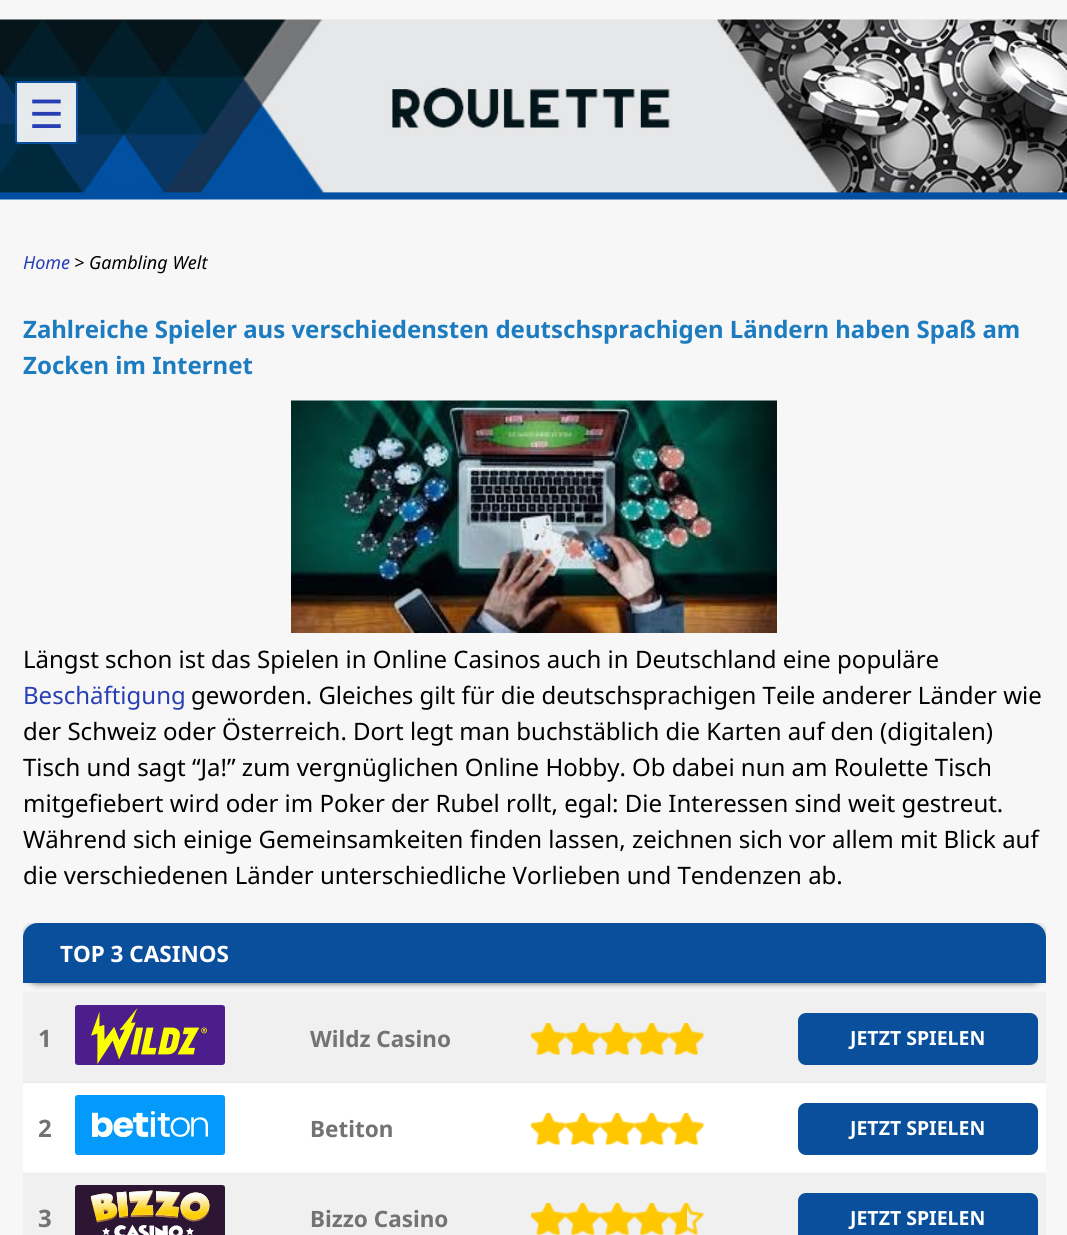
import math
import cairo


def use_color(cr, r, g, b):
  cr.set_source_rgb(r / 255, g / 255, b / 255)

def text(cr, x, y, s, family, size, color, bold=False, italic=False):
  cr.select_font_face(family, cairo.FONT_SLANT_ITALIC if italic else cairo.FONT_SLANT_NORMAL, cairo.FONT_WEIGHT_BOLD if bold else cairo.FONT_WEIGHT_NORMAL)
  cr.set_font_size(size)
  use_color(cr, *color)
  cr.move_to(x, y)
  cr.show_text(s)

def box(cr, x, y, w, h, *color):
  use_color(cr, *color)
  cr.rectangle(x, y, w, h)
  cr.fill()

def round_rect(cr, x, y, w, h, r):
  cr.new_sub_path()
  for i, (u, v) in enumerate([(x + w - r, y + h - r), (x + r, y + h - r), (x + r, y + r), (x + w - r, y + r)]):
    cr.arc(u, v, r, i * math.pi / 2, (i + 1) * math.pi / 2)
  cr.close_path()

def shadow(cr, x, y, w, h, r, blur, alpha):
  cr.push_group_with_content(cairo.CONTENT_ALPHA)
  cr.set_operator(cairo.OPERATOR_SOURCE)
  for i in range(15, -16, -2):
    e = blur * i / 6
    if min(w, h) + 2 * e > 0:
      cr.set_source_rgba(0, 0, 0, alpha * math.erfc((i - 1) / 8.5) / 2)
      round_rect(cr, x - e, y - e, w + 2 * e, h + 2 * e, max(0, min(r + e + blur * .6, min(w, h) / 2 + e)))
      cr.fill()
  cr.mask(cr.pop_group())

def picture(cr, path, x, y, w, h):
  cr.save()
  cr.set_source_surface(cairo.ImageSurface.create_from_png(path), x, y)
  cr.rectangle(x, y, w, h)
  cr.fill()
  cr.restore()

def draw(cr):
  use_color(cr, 247, 247, 247)
  cr.paint()
  picture(cr, "img_01.png", 0, 19, 1067, 181)
  cr.set_source_rgba(1, 1, 1, 0.9)
  round_rect(cr, 16, 82, 61, 61, 2)
  cr.fill_preserve()
  use_color(cr, 10, 79, 156)
  cr.stroke()
  picture(cr, "img_02.png", 291, 400, 486, 233)
  cr.save()
  cr.rectangle(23, 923, 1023, 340)
  cr.clip()
  use_color(cr, 0, 0, 0)
  shadow(cr, 23, 924, 1023, 60, 15, 3, 0.5)
  cr.restore()
  cr.new_path()
  cr.move_to(38, 923)
  cr.line_to(1031, 923)
  cr.curve_to(1039.5, 923, 1046, 929.5, 1046, 938)
  cr.line_to(1046, 983)
  cr.line_to(23, 983)
  cr.line_to(23, 938)
  cr.curve_to(23, 929.5, 29.5, 923, 38, 923)
  cr.close_path()
  cr.fill()
  cr.save()
  cr.rectangle(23, 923, 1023, 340)
  cr.clip()
  use_color(cr, 0, 0, 0)
  shadow(cr, 23, 995, 1023, 90, 0, 2, 0.2)
  cr.restore()
  box(cr, 23, 993, 1023, 90, 240, 240, 240)
  picture(cr, "img_03.png", 75, 1005, 150, 60)
  picture(cr, "img_04.png", 531, 1023, 173, 32)
  picture(cr, "img_05.png", 531, 1023, 173, 32)
  use_color(cr, 10, 79, 156)
  round_rect(cr, 798, 1013, 240, 52, 8)
  cr.fill()
  cr.save()
  cr.rectangle(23, 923, 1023, 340)
  cr.clip()
  use_color(cr, 0, 0, 0)
  shadow(cr, 23, 1085, 1023, 90, 0, 2, 0.2)
  cr.restore()
  box(cr, 23, 1083, 1023, 90, 255, 255, 255)
  picture(cr, "img_06.png", 75, 1095, 150, 60)
  picture(cr, "img_07.png", 531, 1113, 173, 32)
  picture(cr, "img_08.png", 531, 1113, 173, 32)
  use_color(cr, 10, 79, 156)
  round_rect(cr, 798, 1103, 240, 52, 8)
  cr.fill()
  cr.save()
  cr.rectangle(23, 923, 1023, 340)
  cr.clip()
  use_color(cr, 0, 0, 0)
  shadow(cr, 23, 1175, 1023, 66, 0, 2, 0.2)
  cr.restore()
  box(cr, 23, 1173, 1023, 62, 240, 240, 240)
  picture(cr, "img_09.png", 75, 1185, 150, 50)
  picture(cr, "img_10.png", 531, 1203, 173, 32)
  picture(cr, "img_11.png", 531, 1203, 156, 32)
  use_color(cr, 10, 79, 156)
  round_rect(cr, 798, 1193, 240, 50, 8)
  cr.fill()
  text(cr, 29, 128, "☰", "DejaVu Sans", 39, (40, 62, 181))
  text(cr, 23, 269, "Home", "Noto Sans", 18, (40, 62, 181), italic=True)
  text(cr, 74, 269, "> Gambling Welt", "Noto Sans", 18, (0, 0, 0), italic=True)
  text(cr, 23, 338, "Zahlreiche Spieler aus verschiedensten deutschsprachigen Ländern haben Spaß am", "Noto Sans", 24, (29, 124, 192), bold=True)
  text(cr, 23, 374, "Zocken im Internet", "Noto Sans", 24, (29, 124, 192), bold=True)
  text(cr, 23, 668, "Längst schon ist das Spielen in Online Casinos auch in Deutschland eine populäre", "Noto Sans", 24, (0, 0, 0))
  text(cr, 23, 704, "Beschäftigung", "Noto Sans", 24, (40, 62, 181))
  text(cr, 191, 704, "geworden. Gleiches gilt für die deutschsprachigen Teile anderer Länder wie", "Noto Sans", 24, (0, 0, 0))
  text(cr, 23, 740, "der Schweiz oder Österreich. Dort legt man buchstäblich die Karten auf den (digitalen)", "Noto Sans", 24, (0, 0, 0))
  text(cr, 23, 776, "Tisch und sagt “Ja!” zum vergnüglichen Online Hobby. Ob dabei nun am Roulette Tisch", "Noto Sans", 24, (0, 0, 0))
  text(cr, 23, 812, "mitgefiebert wird oder im Poker der Rubel rollt, egal: Die Interessen sind weit gestreut.", "Noto Sans", 24, (0, 0, 0))
  text(cr, 23, 848, "Während sich einige Gemeinsamkeiten finden lassen, zeichnen sich vor allem mit Blick auf", "Noto Sans", 24, (0, 0, 0))
  text(cr, 23, 884, "die verschiedenen Länder unterschiedliche Vorlieben und Tendenzen ab.", "Noto Sans", 24, (0, 0, 0))
  text(cr, 60, 962, "TOP 3 CASINOS", "Noto Sans", 22.5, (255, 255, 255), bold=True)
  text(cr, 38, 1047, "1", "Noto Sans", 24, (115, 115, 115), bold=True)
  text(cr, 310, 1047, "Wildz Casino", "Noto Sans", 22.5, (115, 115, 115), bold=True)
  text(cr, 850, 1045, "JETZT SPIELEN", "Noto Sans", 19.5, (255, 255, 255), bold=True)
  text(cr, 38, 1137, "2", "Noto Sans", 24, (115, 115, 115), bold=True)
  text(cr, 310, 1137, "Betiton", "Noto Sans", 22.5, (115, 115, 115), bold=True)
  text(cr, 850, 1135, "JETZT SPIELEN", "Noto Sans", 19.5, (255, 255, 255), bold=True)
  text(cr, 38, 1227, "3", "Noto Sans", 24, (115, 115, 115), bold=True)
  text(cr, 310, 1227, "Bizzo Casino", "Noto Sans", 22.5, (115, 115, 115), bold=True)
  text(cr, 850, 1225, "JETZT SPIELEN", "Noto Sans", 19.5, (255, 255, 255), bold=True)


surface = cairo.ImageSurface(cairo.FORMAT_RGB24, 1067, 1235)
cr = cairo.Context(surface)
options = cairo.FontOptions()
options.set_hint_metrics(cairo.HINT_METRICS_OFF)
options.set_hint_style(cairo.HINT_STYLE_NONE)
cr.set_font_options(options)
cr.set_miter_limit(4)
draw(cr)
surface.write_to_png("out.png")
